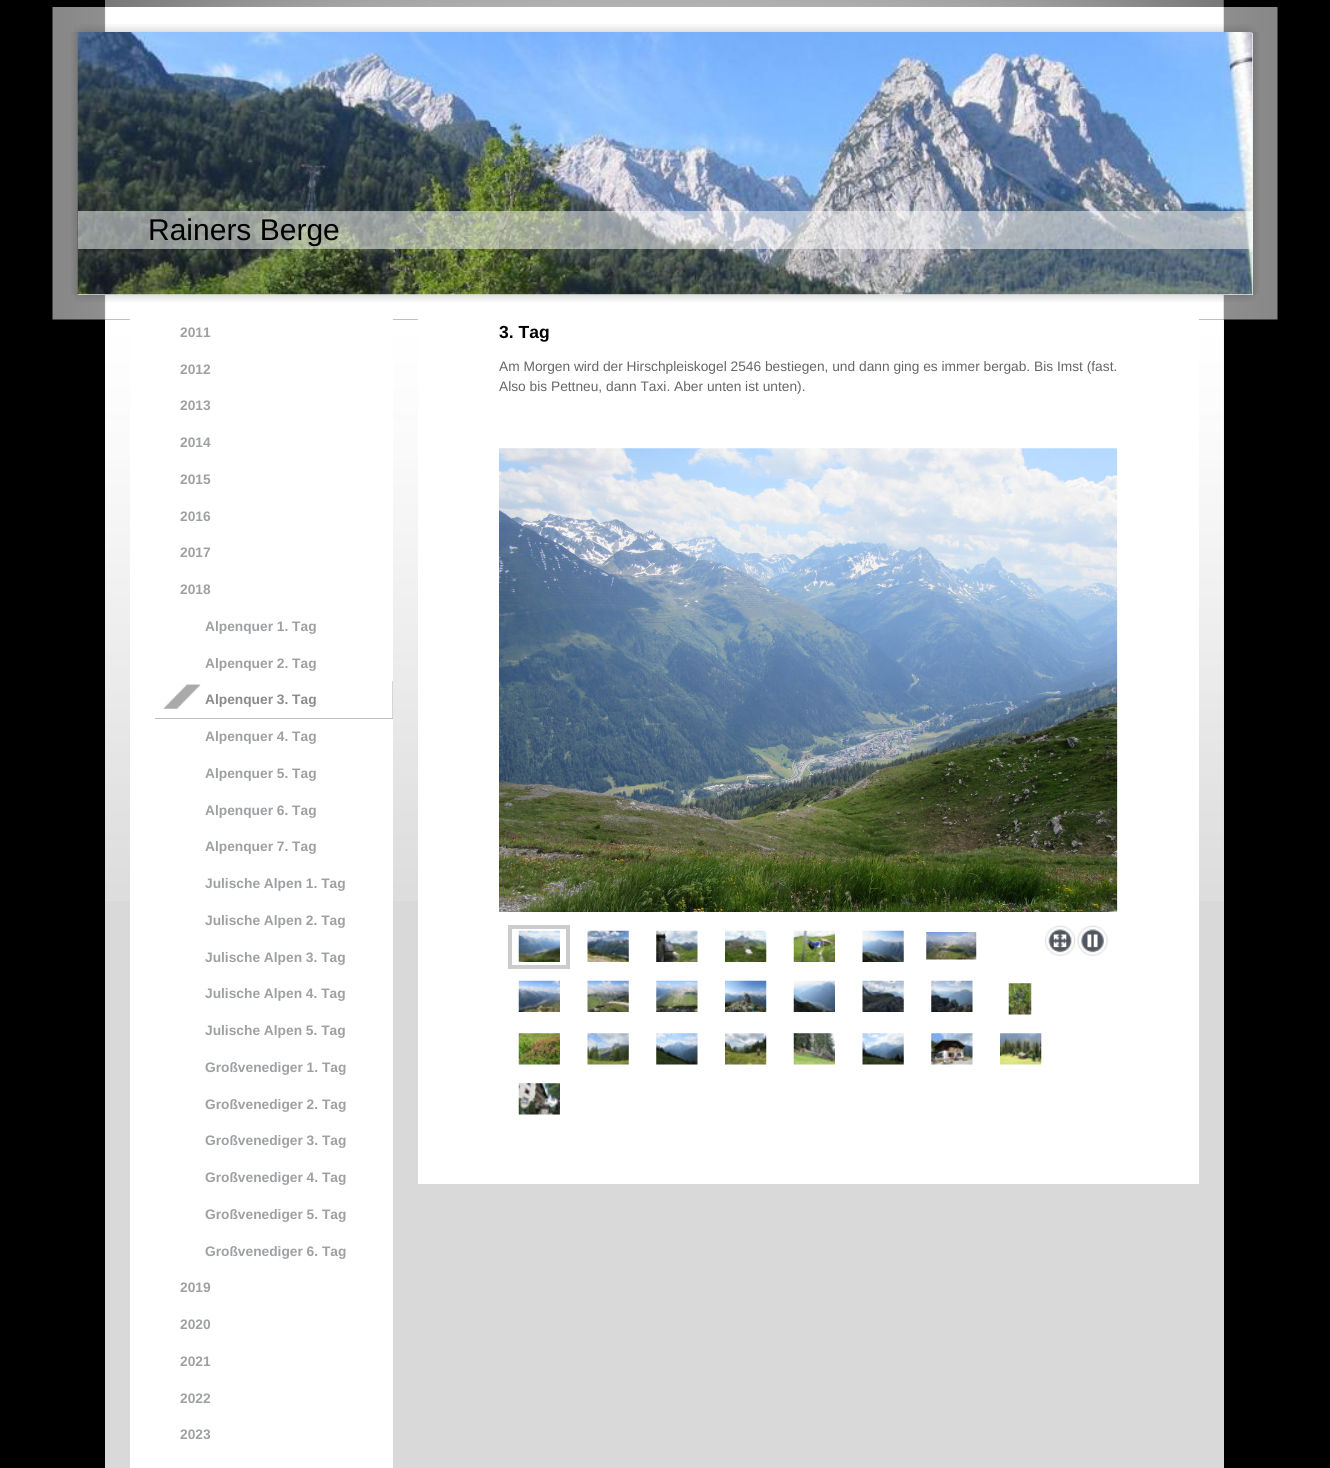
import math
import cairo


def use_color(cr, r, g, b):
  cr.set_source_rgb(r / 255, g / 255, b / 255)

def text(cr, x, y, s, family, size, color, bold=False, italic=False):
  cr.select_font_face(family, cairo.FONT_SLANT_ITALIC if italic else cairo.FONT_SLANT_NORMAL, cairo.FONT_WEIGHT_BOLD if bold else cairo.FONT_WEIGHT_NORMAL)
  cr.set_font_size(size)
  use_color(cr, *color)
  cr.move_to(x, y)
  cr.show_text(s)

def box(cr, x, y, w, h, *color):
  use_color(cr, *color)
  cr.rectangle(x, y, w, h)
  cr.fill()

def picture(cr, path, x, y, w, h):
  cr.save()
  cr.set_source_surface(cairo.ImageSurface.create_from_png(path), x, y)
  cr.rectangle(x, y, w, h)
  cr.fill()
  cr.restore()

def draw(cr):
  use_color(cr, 0, 0, 0)
  cr.paint()
  picture(cr, "img_01.png", 105, 0, 1119, 7)
  picture(cr, "img_02.png", 52, 7, 1226, 313)
  picture(cr, "img_03.png", 74, 24, 1182, 8)
  picture(cr, "img_04.png", 71, 32, 1188, 263)
  picture(cr, "img_06.png", 74, 294, 1182, 8)
  box(cr, 78, 33, 1175, 262, 238, 238, 238)
  picture(cr, "img_05.png", 77, 32, 1176, 263)
  cr.set_source_rgba(1, 1, 1, 0.5)
  cr.rectangle(78, 211, 1175, 38)
  cr.fill()
  box(cr, 105, 320, 1119, 1148, 217, 217, 217)
  picture(cr, "img_07.png", 105, 319, 1119, 582)
  box(cr, 130, 319, 263, 1149, 255, 255, 255)
  box(cr, 155, 681, 238, 38, 171, 170, 170)
  picture(cr, "img_08.png", 155, 681, 238, 38)
  box(cr, 418, 319, 781, 865, 255, 255, 255)
  picture(cr, "img_09.png", 499, 448, 619, 464)
  cr.rectangle(510, 927, 58, 40)
  use_color(cr, 204, 204, 204)
  cr.set_line_width(4)
  cr.stroke()
  picture(cr, "img_10.png", 518, 930, 42, 32)
  picture(cr, "img_11.png", 587, 930, 42, 32)
  picture(cr, "img_12.png", 656, 930, 42, 32)
  picture(cr, "img_13.png", 725, 930, 42, 32)
  picture(cr, "img_14.png", 793, 930, 42, 32)
  picture(cr, "img_15.png", 862, 930, 42, 32)
  picture(cr, "img_16.png", 926, 932, 51, 28)
  picture(cr, "img_17.png", 1045, 925, 31, 31)
  picture(cr, "img_18.png", 1077, 925, 32, 31)
  picture(cr, "img_19.png", 518, 980, 42, 32)
  picture(cr, "img_20.png", 587, 980, 42, 32)
  picture(cr, "img_21.png", 656, 980, 42, 32)
  picture(cr, "img_22.png", 725, 980, 42, 32)
  picture(cr, "img_23.png", 793, 980, 42, 32)
  picture(cr, "img_24.png", 862, 980, 42, 32)
  picture(cr, "img_25.png", 931, 980, 42, 32)
  picture(cr, "img_26.png", 1008, 983, 24, 32)
  picture(cr, "img_27.png", 518, 1033, 42, 32)
  picture(cr, "img_28.png", 587, 1033, 42, 32)
  picture(cr, "img_29.png", 656, 1033, 42, 32)
  picture(cr, "img_30.png", 725, 1033, 42, 32)
  picture(cr, "img_31.png", 793, 1033, 42, 32)
  picture(cr, "img_32.png", 862, 1033, 42, 32)
  picture(cr, "img_33.png", 931, 1033, 42, 32)
  picture(cr, "img_34.png", 1000, 1033, 42, 32)
  picture(cr, "img_35.png", 518, 1083, 42, 32)
  text(cr, 148, 240, "Rainers Berge", "Liberation Sans", 30, (0, 0, 0))
  text(cr, 180, 337, "2011", "Liberation Sans", 13.75, (158, 160, 162), bold=True)
  text(cr, 180, 374, "2012", "Liberation Sans", 13.75, (158, 160, 162), bold=True)
  text(cr, 180, 410, "2013", "Liberation Sans", 13.75, (158, 160, 162), bold=True)
  text(cr, 180, 447, "2014", "Liberation Sans", 13.75, (158, 160, 162), bold=True)
  text(cr, 180, 484, "2015", "Liberation Sans", 13.75, (158, 160, 162), bold=True)
  text(cr, 180, 521, "2016", "Liberation Sans", 13.75, (158, 160, 162), bold=True)
  text(cr, 180, 557, "2017", "Liberation Sans", 13.75, (158, 160, 162), bold=True)
  text(cr, 180, 594, "2018", "Liberation Sans", 13.75, (158, 160, 162), bold=True)
  text(cr, 205, 631, "Alpenquer 1. Tag", "Liberation Sans", 13.75, (158, 160, 162), bold=True)
  text(cr, 205, 668, "Alpenquer 2. Tag", "Liberation Sans", 13.75, (158, 160, 162), bold=True)
  text(cr, 205, 704, "Alpenquer 3. Tag", "Liberation Sans", 13.75, (139, 139, 139), bold=True)
  text(cr, 205, 741, "Alpenquer 4. Tag", "Liberation Sans", 13.75, (158, 160, 162), bold=True)
  text(cr, 205, 778, "Alpenquer 5. Tag", "Liberation Sans", 13.75, (158, 160, 162), bold=True)
  text(cr, 205, 815, "Alpenquer 6. Tag", "Liberation Sans", 13.75, (158, 160, 162), bold=True)
  text(cr, 205, 851, "Alpenquer 7. Tag", "Liberation Sans", 13.75, (158, 160, 162), bold=True)
  text(cr, 205, 888, "Julische Alpen 1. Tag", "Liberation Sans", 13.75, (158, 160, 162), bold=True)
  text(cr, 205, 925, "Julische Alpen 2. Tag", "Liberation Sans", 13.75, (158, 160, 162), bold=True)
  text(cr, 205, 962, "Julische Alpen 3. Tag", "Liberation Sans", 13.75, (158, 160, 162), bold=True)
  text(cr, 205, 998, "Julische Alpen 4. Tag", "Liberation Sans", 13.75, (158, 160, 162), bold=True)
  text(cr, 205, 1035, "Julische Alpen 5. Tag", "Liberation Sans", 13.75, (158, 160, 162), bold=True)
  text(cr, 205, 1072, "Großvenediger 1. Tag", "Liberation Sans", 13.75, (158, 160, 162), bold=True)
  text(cr, 205, 1109, "Großvenediger 2. Tag", "Liberation Sans", 13.75, (158, 160, 162), bold=True)
  text(cr, 205, 1145, "Großvenediger 3. Tag", "Liberation Sans", 13.75, (158, 160, 162), bold=True)
  text(cr, 205, 1182, "Großvenediger 4. Tag", "Liberation Sans", 13.75, (158, 160, 162), bold=True)
  text(cr, 205, 1219, "Großvenediger 5. Tag", "Liberation Sans", 13.75, (158, 160, 162), bold=True)
  text(cr, 205, 1256, "Großvenediger 6. Tag", "Liberation Sans", 13.75, (158, 160, 162), bold=True)
  text(cr, 180, 1292, "2019", "Liberation Sans", 13.75, (158, 160, 162), bold=True)
  text(cr, 180, 1329, "2020", "Liberation Sans", 13.75, (158, 160, 162), bold=True)
  text(cr, 180, 1366, "2021", "Liberation Sans", 13.75, (158, 160, 162), bold=True)
  text(cr, 180, 1403, "2022", "Liberation Sans", 13.75, (158, 160, 162), bold=True)
  text(cr, 180, 1439, "2023", "Liberation Sans", 13.75, (158, 160, 162), bold=True)
  text(cr, 499, 338, "3. Tag", "Liberation Sans", 17.5, (0, 0, 0), bold=True)
  text(cr, 499, 371, "Am Morgen wird der Hirschpleiskogel 2546 bestiegen, und dann ging es immer bergab. Bis Imst (fast.", "Liberation Sans", 13.75, (102, 102, 102))
  text(cr, 499, 391, "Also bis Pettneu, dann Taxi. Aber unten ist unten).", "Liberation Sans", 13.75, (102, 102, 102))


surface = cairo.ImageSurface(cairo.FORMAT_RGB24, 1330, 1468)
cr = cairo.Context(surface)
options = cairo.FontOptions()
options.set_hint_metrics(cairo.HINT_METRICS_OFF)
options.set_hint_style(cairo.HINT_STYLE_NONE)
cr.set_font_options(options)
cr.set_miter_limit(4)
draw(cr)
surface.write_to_png("out.png")
